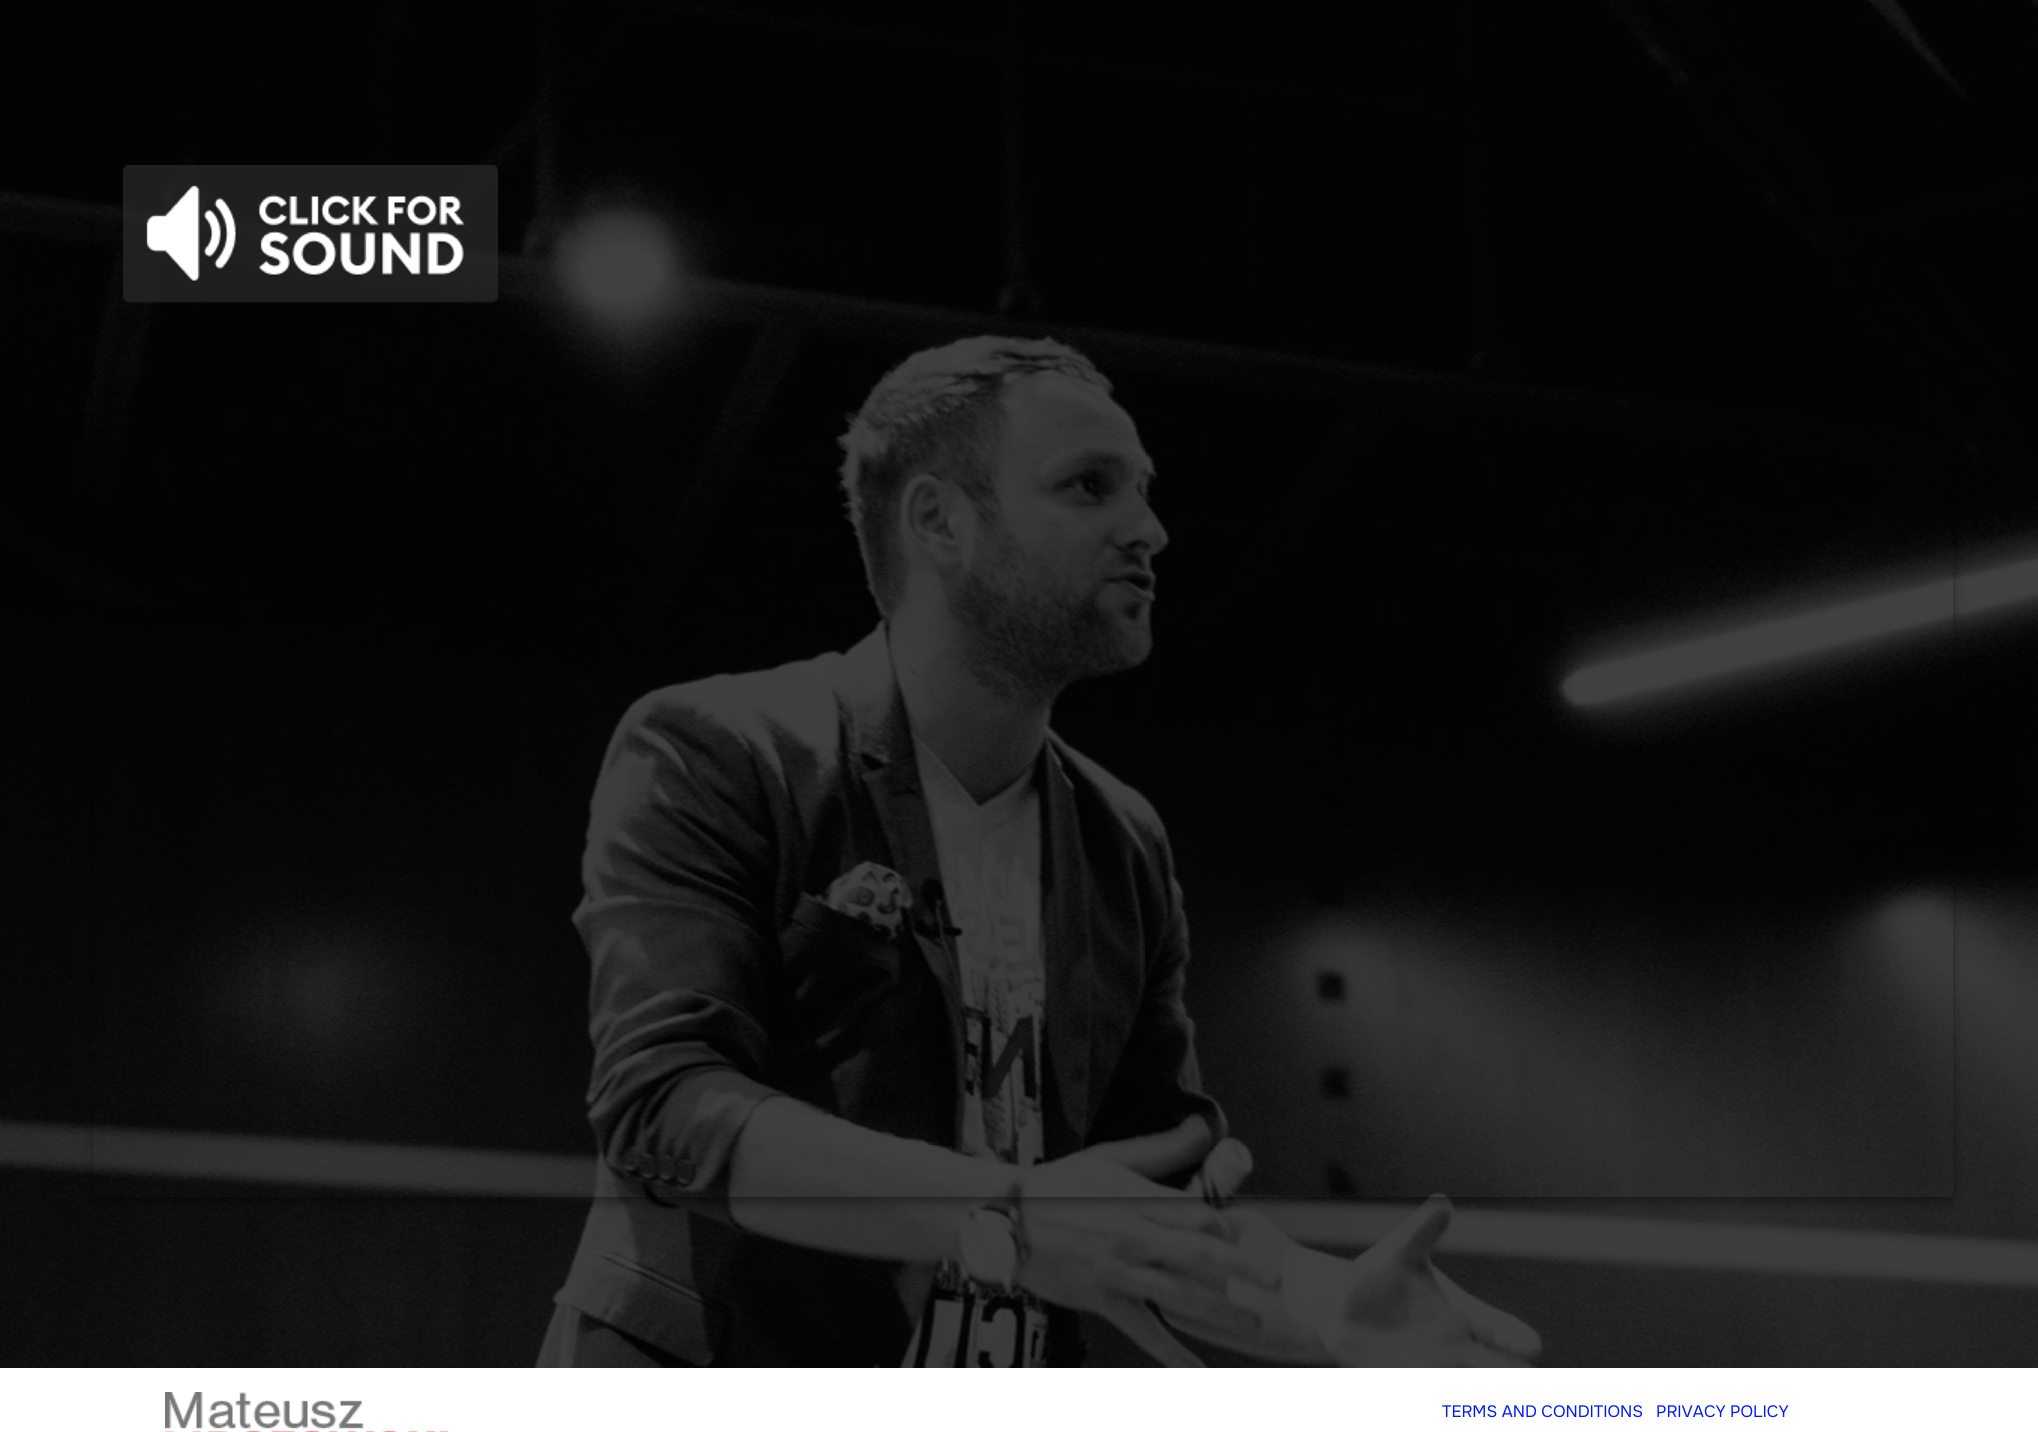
import math
import cairo


def use_color(cr, r, g, b):
  cr.set_source_rgb(r / 255, g / 255, b / 255)

def text(cr, x, y, s, family, size, color, bold=False, italic=False):
  cr.select_font_face(family, cairo.FONT_SLANT_ITALIC if italic else cairo.FONT_SLANT_NORMAL, cairo.FONT_WEIGHT_BOLD if bold else cairo.FONT_WEIGHT_NORMAL)
  cr.set_font_size(size)
  use_color(cr, *color)
  cr.move_to(x, y)
  cr.show_text(s)

def round_rect(cr, x, y, w, h, r):
  cr.new_sub_path()
  for i, (u, v) in enumerate([(x + w - r, y + h - r), (x + r, y + h - r), (x + r, y + r), (x + w - r, y + r)]):
    cr.arc(u, v, r, i * math.pi / 2, (i + 1) * math.pi / 2)
  cr.close_path()

def shadow(cr, x, y, w, h, r, blur, alpha):
  cr.push_group_with_content(cairo.CONTENT_ALPHA)
  cr.set_operator(cairo.OPERATOR_SOURCE)
  for i in range(15, -16, -2):
    e = blur * i / 6
    if min(w, h) + 2 * e > 0:
      cr.set_source_rgba(0, 0, 0, alpha * math.erfc((i - 1) / 8.5) / 2)
      round_rect(cr, x - e, y - e, w + 2 * e, h + 2 * e, max(0, min(r + e + blur * .6, min(w, h) / 2 + e)))
      cr.fill()
  cr.mask(cr.pop_group())

def picture(cr, path, x, y, w, h):
  cr.save()
  cr.set_source_surface(cairo.ImageSurface.create_from_png(path), x, y)
  cr.rectangle(x, y, w, h)
  cr.fill()
  cr.restore()

def draw(cr):
  use_color(cr, 255, 255, 255)
  cr.paint()
  picture(cr, "img_01.png", 0, 0, 2038, 1368)
  cr.save()
  cr.set_fill_rule(cairo.FILL_RULE_EVEN_ODD)
  cr.new_path()
  cr.move_to(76, 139)
  cr.line_to(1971, 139)
  cr.line_to(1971, 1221)
  cr.line_to(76, 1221)
  cr.close_path()
  cr.move_to(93, 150)
  cr.line_to(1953, 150)
  cr.line_to(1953, 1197)
  cr.line_to(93, 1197)
  cr.close_path()
  cr.clip()
  use_color(cr, 0, 0, 0)
  shadow(cr, 95, 158, 1857, 1044, 0, 6, 0.45)
  cr.restore()
  picture(cr, "img_02.png", 123, 165, 375, 138)
  picture(cr, "img_03.png", 165, 1392, 284, 40)
  text(cr, 1442, 1417, "TERMS AND CONDITIONS", "Onest", 16.5, (0, 26, 255))
  text(cr, 1656, 1417, "PRIVACY POLICY", "Onest", 16.5, (0, 26, 255))


surface = cairo.ImageSurface(cairo.FORMAT_RGB24, 2038, 1432)
cr = cairo.Context(surface)
options = cairo.FontOptions()
options.set_hint_metrics(cairo.HINT_METRICS_OFF)
options.set_hint_style(cairo.HINT_STYLE_NONE)
cr.set_font_options(options)
cr.set_miter_limit(4)
draw(cr)
surface.write_to_png("out.png")
